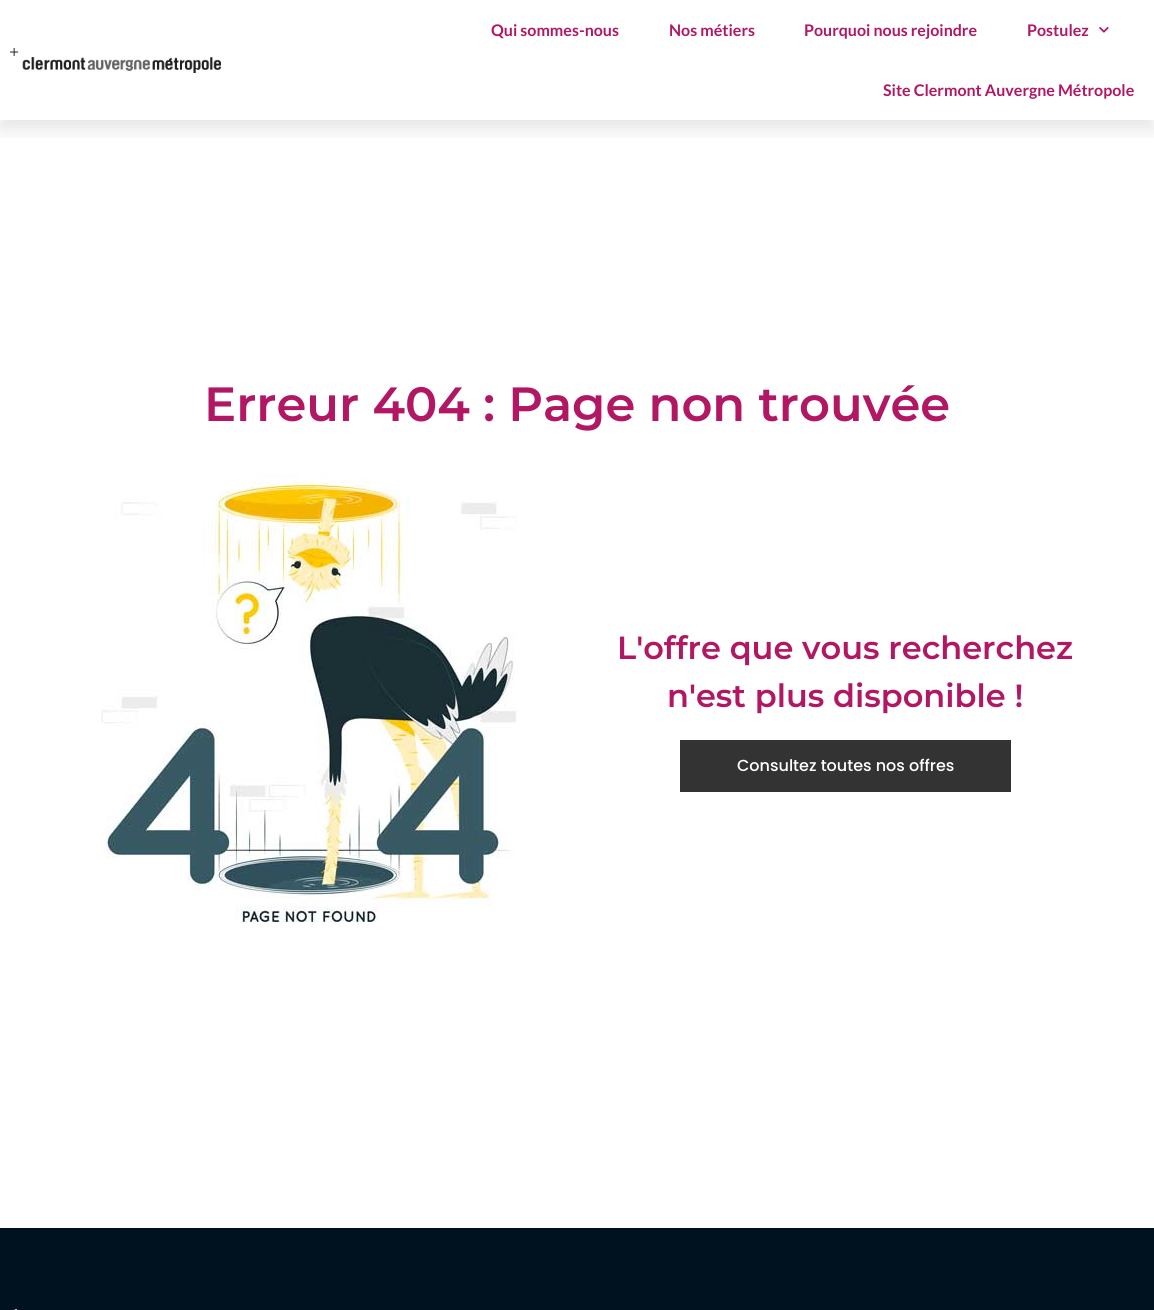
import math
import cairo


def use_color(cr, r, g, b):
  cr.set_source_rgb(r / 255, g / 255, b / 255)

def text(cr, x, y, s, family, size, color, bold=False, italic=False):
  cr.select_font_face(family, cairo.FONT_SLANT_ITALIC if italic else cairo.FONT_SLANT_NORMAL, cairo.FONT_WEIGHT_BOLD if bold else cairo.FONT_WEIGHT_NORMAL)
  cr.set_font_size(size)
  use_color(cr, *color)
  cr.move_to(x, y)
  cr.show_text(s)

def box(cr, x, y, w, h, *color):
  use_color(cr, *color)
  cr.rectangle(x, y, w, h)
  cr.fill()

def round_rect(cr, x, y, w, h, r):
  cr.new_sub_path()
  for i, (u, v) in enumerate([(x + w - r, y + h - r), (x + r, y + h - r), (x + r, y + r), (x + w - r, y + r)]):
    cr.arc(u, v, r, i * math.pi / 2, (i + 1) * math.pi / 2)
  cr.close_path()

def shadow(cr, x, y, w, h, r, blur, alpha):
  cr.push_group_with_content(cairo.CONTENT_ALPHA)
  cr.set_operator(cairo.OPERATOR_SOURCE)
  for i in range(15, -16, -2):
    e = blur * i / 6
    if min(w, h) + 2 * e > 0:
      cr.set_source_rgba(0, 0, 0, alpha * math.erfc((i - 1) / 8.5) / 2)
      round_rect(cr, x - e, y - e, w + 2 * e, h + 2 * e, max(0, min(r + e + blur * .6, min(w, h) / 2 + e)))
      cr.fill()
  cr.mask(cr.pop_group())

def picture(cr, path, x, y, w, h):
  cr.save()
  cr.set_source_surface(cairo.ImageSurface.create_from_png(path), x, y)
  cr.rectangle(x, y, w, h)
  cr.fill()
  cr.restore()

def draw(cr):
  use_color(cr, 255, 255, 255)
  cr.paint()
  cr.save()
  cr.rectangle(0, 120, 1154, 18)
  cr.clip()
  use_color(cr, 0, 0, 0)
  shadow(cr, 0, 10, 1154, 120, 0, 10, 0.1)
  cr.restore()
  picture(cr, "img_01.png", 10, 48, 211, 25)
  picture(cr, "img_02.png", 1099, 27, 10, 6)
  picture(cr, "img_03.png", 101, 474, 416, 448)
  box(cr, 680, 740, 331, 52, 51, 51, 51)
  box(cr, 0, 1228, 1154, 82, 0, 17, 32)
  picture(cr, "img_04.png", 14, 1309, 3, 1)
  text(cr, 491, 36, "Qui sommes-nous", "Lato", 16, (177, 23, 99), bold=True)
  text(cr, 669, 36, "Nos métiers", "Lato", 16, (177, 23, 99), bold=True)
  text(cr, 804, 36, "Pourquoi nous rejoindre", "Lato", 16, (177, 23, 99), bold=True)
  text(cr, 1027, 36, "Postulez", "Lato", 16, (177, 23, 99), bold=True)
  text(cr, 883, 96, "Site Clermont Auvergne Métropole", "Lato", 16, (177, 23, 99), bold=True)
  text(cr, 204, 421, "Erreur 404 : Page non trouvée", "Montserrat SemiBold", 48, (177, 23, 99))
  text(cr, 617, 659, "L'offre que vous recherchez", "Montserrat SemiBold", 32, (177, 23, 99))
  text(cr, 667, 707, "n'est plus disponible !", "Montserrat SemiBold", 32, (177, 23, 99))
  text(cr, 737, 771, "Consultez toutes nos offres", "Poppins Medium", 16, (255, 255, 255))


surface = cairo.ImageSurface(cairo.FORMAT_RGB24, 1154, 1310)
cr = cairo.Context(surface)
options = cairo.FontOptions()
options.set_hint_metrics(cairo.HINT_METRICS_OFF)
options.set_hint_style(cairo.HINT_STYLE_NONE)
cr.set_font_options(options)
cr.set_miter_limit(4)
draw(cr)
surface.write_to_png("out.png")
